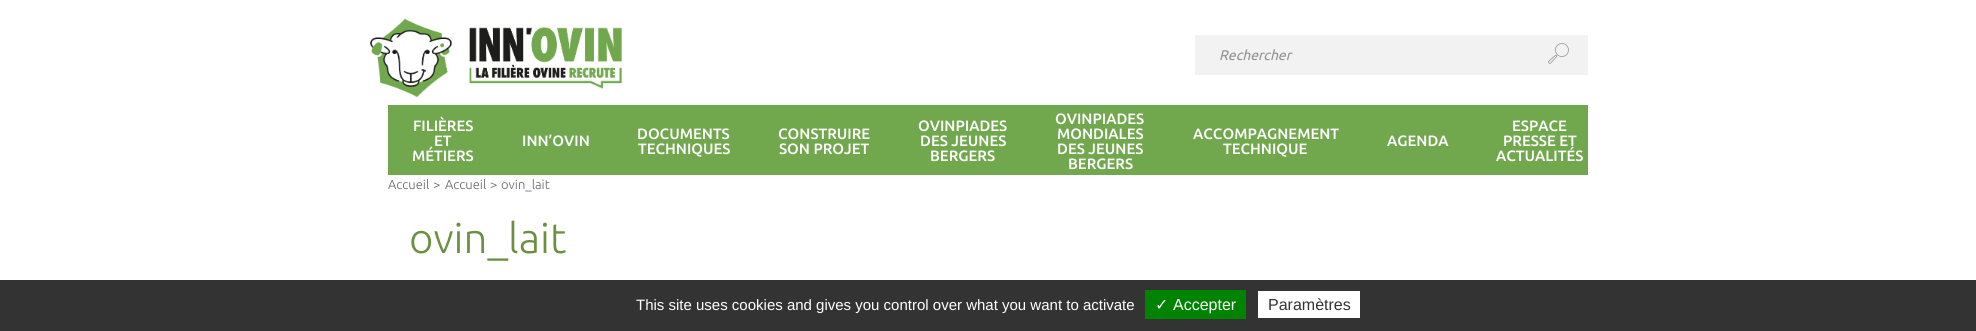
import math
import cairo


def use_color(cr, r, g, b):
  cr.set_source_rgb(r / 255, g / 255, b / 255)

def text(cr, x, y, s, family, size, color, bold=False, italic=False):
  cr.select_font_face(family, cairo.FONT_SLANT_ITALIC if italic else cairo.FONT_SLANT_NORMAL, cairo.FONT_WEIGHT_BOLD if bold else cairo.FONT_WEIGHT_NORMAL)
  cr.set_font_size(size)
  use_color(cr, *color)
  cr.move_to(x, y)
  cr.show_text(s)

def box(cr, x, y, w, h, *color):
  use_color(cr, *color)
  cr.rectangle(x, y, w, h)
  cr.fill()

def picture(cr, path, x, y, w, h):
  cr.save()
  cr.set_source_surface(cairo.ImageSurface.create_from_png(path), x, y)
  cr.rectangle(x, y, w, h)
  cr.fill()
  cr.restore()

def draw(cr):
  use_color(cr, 255, 255, 255)
  cr.paint()
  picture(cr, "img_01.png", 370, 18, 252, 80)
  box(cr, 1195, 35, 393, 40, 242, 242, 242)
  picture(cr, "img_02.png", 1548, 43, 21, 21)
  box(cr, 388, 105, 1200, 70, 113, 168, 78)
  box(cr, 0, 280, 1976, 51, 51, 51, 51)
  box(cr, 1145, 290, 101, 29, 0, 131, 0)
  box(cr, 1258, 291, 102, 27, 255, 255, 255)
  text(cr, 1219, 60, "Rechercher", "Ubuntu", 14, (145, 145, 145), italic=True)
  text(cr, 413, 131, "FILIÈRES", "Ubuntu Medium", 15, (255, 255, 255))
  text(cr, 434, 146, "ET", "Ubuntu Medium", 15, (255, 255, 255))
  text(cr, 412, 161, "MÉTIERS", "Ubuntu Medium", 15, (255, 255, 255))
  text(cr, 522, 146, "INN’OVIN", "Ubuntu Medium", 15, (255, 255, 255))
  text(cr, 637, 139, "DOCUMENTS", "Ubuntu Medium", 15, (255, 255, 255))
  text(cr, 638, 154, "TECHNIQUES", "Ubuntu Medium", 15, (255, 255, 255))
  text(cr, 778, 139, "CONSTRUIRE", "Ubuntu Medium", 15, (255, 255, 255))
  text(cr, 779, 154, "SON PROJET", "Ubuntu Medium", 15, (255, 255, 255))
  text(cr, 918, 131, "OVINPIADES", "Ubuntu Medium", 15, (255, 255, 255))
  text(cr, 920, 146, "DES JEUNES", "Ubuntu Medium", 15, (255, 255, 255))
  text(cr, 930, 161, "BERGERS", "Ubuntu Medium", 15, (255, 255, 255))
  text(cr, 1055, 124, "OVINPIADES", "Ubuntu Medium", 15, (255, 255, 255))
  text(cr, 1057, 139, "MONDIALES", "Ubuntu Medium", 15, (255, 255, 255))
  text(cr, 1057, 154, "DES JEUNES", "Ubuntu Medium", 15, (255, 255, 255))
  text(cr, 1068, 169, "BERGERS", "Ubuntu Medium", 15, (255, 255, 255))
  text(cr, 1193, 139, "ACCOMPAGNEMENT", "Ubuntu Medium", 15, (255, 255, 255))
  text(cr, 1223, 154, "TECHNIQUE", "Ubuntu Medium", 15, (255, 255, 255))
  text(cr, 1387, 146, "AGENDA", "Ubuntu Medium", 15, (255, 255, 255))
  text(cr, 1512, 131, "ESPACE", "Ubuntu Medium", 15, (255, 255, 255))
  text(cr, 1503, 146, "PRESSE ET", "Ubuntu Medium", 15, (255, 255, 255))
  text(cr, 1496, 161, "ACTUALITÉS", "Ubuntu Medium", 15, (255, 255, 255))
  text(cr, 388, 189, "Accueil", "Ubuntu Light", 13, (101, 101, 101))
  text(cr, 433, 189, ">", "Ubuntu Light", 13, (101, 101, 101))
  text(cr, 445, 189, "Accueil", "Ubuntu Light", 13, (101, 101, 101))
  text(cr, 490, 189, ">", "Ubuntu Light", 13, (101, 101, 101))
  text(cr, 501, 189, "ovin_lait", "Ubuntu Light", 13, (101, 101, 101))
  text(cr, 409, 253, "ovin_lait", "Ubuntu Light", 42, (108, 143, 66))
  text(cr, 636, 310, "This site uses cookies and gives you control over what you want to activate", "Liberation Sans", 15, (255, 255, 255))
  text(cr, 1155, 310, "✓", "DejaVu Sans", 16, (255, 255, 255))
  text(cr, 1173, 310, "Accepter", "Liberation Sans", 16, (255, 255, 255))
  text(cr, 1268, 310, "Paramètres", "Liberation Sans", 16, (51, 51, 51))


surface = cairo.ImageSurface(cairo.FORMAT_RGB24, 1976, 331)
cr = cairo.Context(surface)
options = cairo.FontOptions()
options.set_hint_metrics(cairo.HINT_METRICS_OFF)
options.set_hint_style(cairo.HINT_STYLE_NONE)
cr.set_font_options(options)
cr.set_miter_limit(4)
draw(cr)
surface.write_to_png("out.png")
